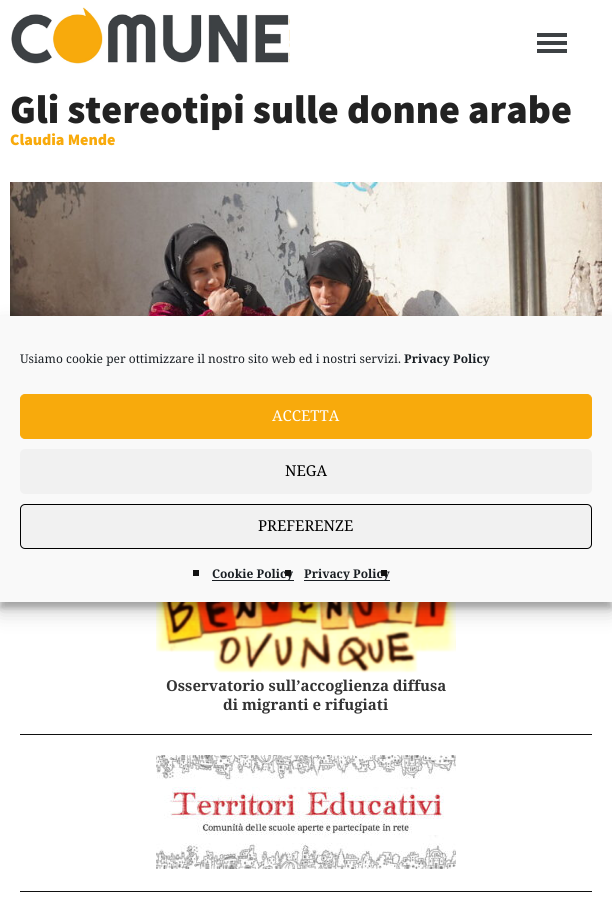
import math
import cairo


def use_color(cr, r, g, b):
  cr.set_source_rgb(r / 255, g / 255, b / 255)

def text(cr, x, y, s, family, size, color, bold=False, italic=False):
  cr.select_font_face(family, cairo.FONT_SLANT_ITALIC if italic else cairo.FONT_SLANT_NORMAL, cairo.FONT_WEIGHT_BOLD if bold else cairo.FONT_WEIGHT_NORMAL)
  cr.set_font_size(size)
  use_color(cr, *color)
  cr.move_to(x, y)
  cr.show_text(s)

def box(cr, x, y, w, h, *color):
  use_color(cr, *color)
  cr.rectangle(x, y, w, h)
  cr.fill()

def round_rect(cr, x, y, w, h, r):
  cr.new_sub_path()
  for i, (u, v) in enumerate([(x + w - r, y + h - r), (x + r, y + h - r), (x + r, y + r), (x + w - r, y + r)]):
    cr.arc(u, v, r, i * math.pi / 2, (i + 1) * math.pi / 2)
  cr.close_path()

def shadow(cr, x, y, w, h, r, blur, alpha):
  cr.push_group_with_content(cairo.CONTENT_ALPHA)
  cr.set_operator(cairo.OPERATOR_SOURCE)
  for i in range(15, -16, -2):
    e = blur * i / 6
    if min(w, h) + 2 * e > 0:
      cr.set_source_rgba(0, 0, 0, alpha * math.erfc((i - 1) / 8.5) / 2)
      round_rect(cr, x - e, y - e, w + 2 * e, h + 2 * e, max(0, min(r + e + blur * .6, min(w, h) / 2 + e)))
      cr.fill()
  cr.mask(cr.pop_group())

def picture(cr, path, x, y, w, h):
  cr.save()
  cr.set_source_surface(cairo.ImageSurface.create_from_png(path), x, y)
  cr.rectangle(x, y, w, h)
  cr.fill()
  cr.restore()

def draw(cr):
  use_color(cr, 255, 255, 255)
  cr.paint()
  picture(cr, "img_01.png", 11, 7, 279, 57)
  box(cr, 537, 41, 30, 4, 61, 65, 68)
  box(cr, 537, 33, 30, 4, 61, 65, 68)
  box(cr, 537, 49, 30, 4, 61, 65, 68)
  picture(cr, "img_02.png", 10, 182, 592, 134)
  picture(cr, "img_03.png", 156, 602, 300, 71)
  box(cr, 20, 734, 572, 1, 17, 17, 17)
  picture(cr, "img_04.png", 156, 755, 300, 114)
  box(cr, 20, 891, 572, 1, 17, 17, 17)
  use_color(cr, 0, 0, 0)
  shadow(cr, 0, 322, 612, 286, 0, 3, 0.23)
  shadow(cr, 0, 326, 612, 286, 0, 10, 0.19)
  box(cr, 0, 316, 612, 286, 249, 249, 249)
  use_color(cr, 248, 170, 12)
  round_rect(cr, 20.5, 394.5, 571, 44, 4.5)
  cr.fill_preserve()
  cr.set_line_width(1)
  cr.stroke()
  use_color(cr, 241, 241, 241)
  round_rect(cr, 20, 449, 572, 45, 5)
  cr.fill()
  round_rect(cr, 20.5, 504.5, 571, 44, 4.5)
  cr.fill_preserve()
  use_color(cr, 0, 0, 0)
  cr.stroke()
  box(cr, 193, 570, 6, 6, 17, 17, 17)
  box(cr, 212, 580, 82, 1, 25, 30, 35)
  box(cr, 304, 580, 86, 1, 25, 30, 35)
  text(cr, 10, 123, "Gli stereotipi sulle donne arabe", "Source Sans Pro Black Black", 40, (34, 34, 34))
  text(cr, 10, 145, "Claudia Mende", "Source Sans Pro Black Black", 16, (248, 170, 12))
  text(cr, 166, 691, "Osservatorio sull’accoglienza diffusa", "Droid Serif", 15, (51, 51, 51), bold=True)
  text(cr, 223, 710, "di migranti e rifugiati", "Droid Serif", 15, (51, 51, 51), bold=True)
  text(cr, 20, 363, "Usiamo cookie per ottimizzare il nostro sito web ed i nostri servizi.", "Droid Serif", 12, (25, 30, 35))
  text(cr, 404, 363, "Privacy Policy", "Droid Serif", 12, (25, 30, 35), bold=True)
  text(cr, 272, 421, "ACCETTA", "Droid Serif", 15, (255, 255, 255))
  text(cr, 285, 476, "NEGA", "Droid Serif", 15, (0, 0, 0))
  text(cr, 258, 531, "PREFERENZE", "Droid Serif", 15, (0, 0, 0))
  text(cr, 212, 578, "Cookie Policy", "Droid Serif", 12, (25, 30, 35), bold=True)
  box(cr, 285, 570, 6, 6, 17, 17, 17)
  text(cr, 304, 578, "Privacy Policy", "Droid Serif", 12, (25, 30, 35), bold=True)
  box(cr, 381, 570, 6, 6, 17, 17, 17)


surface = cairo.ImageSurface(cairo.FORMAT_RGB24, 612, 917)
cr = cairo.Context(surface)
options = cairo.FontOptions()
options.set_hint_metrics(cairo.HINT_METRICS_OFF)
options.set_hint_style(cairo.HINT_STYLE_NONE)
cr.set_font_options(options)
cr.set_miter_limit(4)
draw(cr)
surface.write_to_png("out.png")
